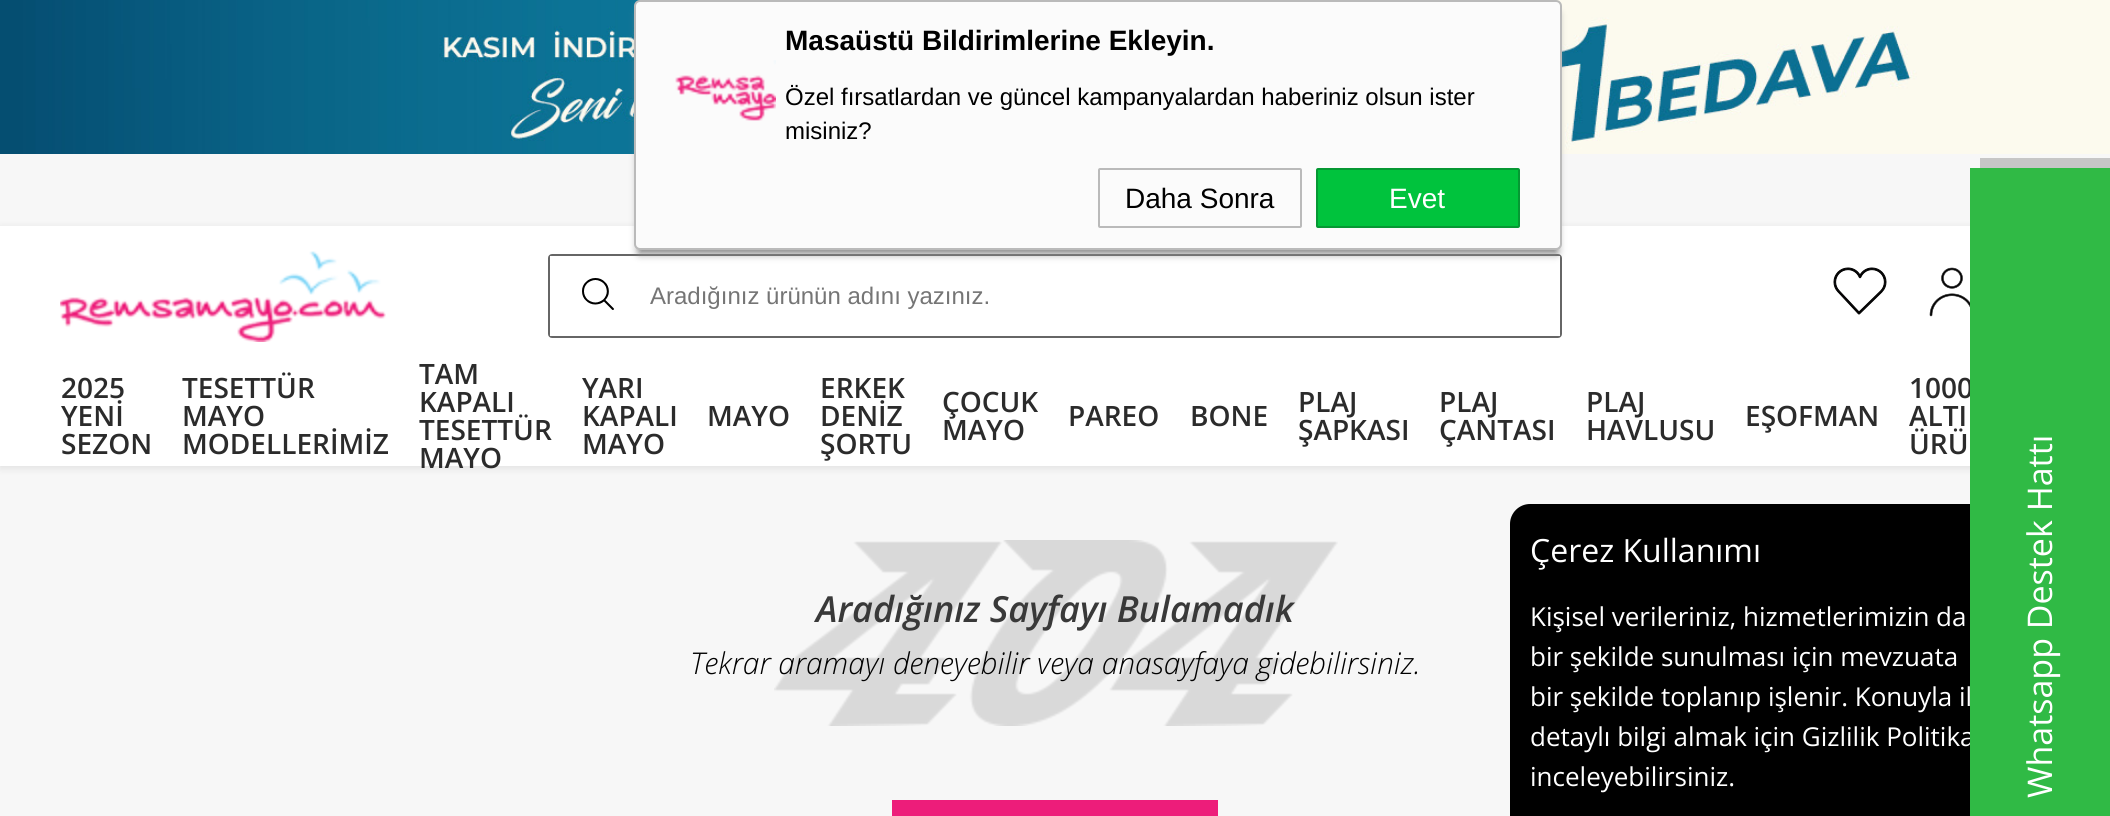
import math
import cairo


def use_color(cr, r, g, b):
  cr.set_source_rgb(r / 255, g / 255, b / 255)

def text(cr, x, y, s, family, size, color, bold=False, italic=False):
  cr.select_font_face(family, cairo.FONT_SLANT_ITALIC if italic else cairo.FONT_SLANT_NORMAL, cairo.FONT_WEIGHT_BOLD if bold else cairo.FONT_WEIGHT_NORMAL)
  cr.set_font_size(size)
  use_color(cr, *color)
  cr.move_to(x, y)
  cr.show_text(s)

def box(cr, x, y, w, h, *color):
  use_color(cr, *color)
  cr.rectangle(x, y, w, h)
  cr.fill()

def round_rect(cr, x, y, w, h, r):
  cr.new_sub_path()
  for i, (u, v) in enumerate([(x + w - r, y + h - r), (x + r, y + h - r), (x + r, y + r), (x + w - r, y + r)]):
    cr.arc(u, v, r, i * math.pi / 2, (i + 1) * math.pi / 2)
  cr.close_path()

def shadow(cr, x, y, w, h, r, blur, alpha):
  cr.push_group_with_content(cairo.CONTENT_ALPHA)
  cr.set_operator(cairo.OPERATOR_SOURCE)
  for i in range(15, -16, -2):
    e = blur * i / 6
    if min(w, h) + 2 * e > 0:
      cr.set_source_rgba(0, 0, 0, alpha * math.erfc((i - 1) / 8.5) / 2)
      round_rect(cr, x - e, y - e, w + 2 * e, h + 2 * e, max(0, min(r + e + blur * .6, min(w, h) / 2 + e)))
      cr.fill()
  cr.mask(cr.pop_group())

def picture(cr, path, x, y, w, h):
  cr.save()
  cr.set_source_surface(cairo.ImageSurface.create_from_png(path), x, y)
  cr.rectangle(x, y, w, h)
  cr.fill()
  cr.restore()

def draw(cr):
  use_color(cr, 247, 247, 247)
  cr.paint()
  picture(cr, "img_02.png", 0, 0, 2110, 154)
  box(cr, 0, 226, 1970, 240, 255, 255, 255)
  cr.save()
  cr.set_fill_rule(cairo.FILL_RULE_EVEN_ODD)
  cr.new_path()
  cr.move_to(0, 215)
  cr.line_to(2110, 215)
  cr.line_to(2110, 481)
  cr.line_to(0, 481)
  cr.close_path()
  cr.move_to(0, 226)
  cr.line_to(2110, 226)
  cr.line_to(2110, 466)
  cr.line_to(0, 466)
  cr.close_path()
  cr.clip()
  use_color(cr, 0, 0, 0)
  shadow(cr, 0, 228, 2110, 240, 0, 4, 0.1)
  cr.restore()
  round_rect(cr, 549, 255, 1012, 82, 3)
  use_color(cr, 102, 102, 102)
  cr.stroke()
  box(cr, 550, 256, 1010, 80, 255, 255, 255)
  use_color(cr, 136, 136, 136)
  shadow(cr, 638, 12, 920, 242, 2, 4, 1)
  use_color(cr, 251, 251, 251)
  round_rect(cr, 635, 1, 926, 248, 5)
  cr.fill_preserve()
  use_color(cr, 186, 186, 186)
  cr.stroke()
  picture(cr, "img_01.png", 675, 60, 101, 61)
  round_rect(cr, 1099, 169, 202, 58, 1)
  cr.stroke()
  use_color(cr, 0, 195, 61)
  round_rect(cr, 1317, 169, 202, 58, 1)
  cr.fill_preserve()
  use_color(cr, 5, 152, 51)
  cr.stroke()
  picture(cr, "img_03.png", 60, 251, 326, 91)
  picture(cr, "img_04.png", 582, 278, 32, 32)
  picture(cr, "img_05.png", 1833, 267, 54, 48)
  picture(cr, "img_06.png", 1929, 267, 41, 50)
  picture(cr, "img_07.png", 774, 540, 564, 186)
  box(cr, 892, 800, 326, 16, 237, 29, 122)
  use_color(cr, 198, 198, 198)
  cr.new_path()
  cr.move_to(1980, 158)
  cr.line_to(1980, 168)
  cr.line_to(2110, 168)
  cr.line_to(2110, 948)
  cr.line_to(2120, 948)
  cr.line_to(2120, 158)
  cr.close_path()
  cr.fill()
  use_color(cr, 0, 0, 0)
  cr.new_path()
  cr.move_to(1530, 504)
  cr.line_to(2050, 504)
  cr.curve_to(2061, 504, 2070, 513, 2070, 524)
  cr.line_to(2070, 816)
  cr.line_to(1510, 816)
  cr.line_to(1510, 524)
  cr.curve_to(1510, 513, 1519, 504, 1530, 504)
  cr.close_path()
  cr.fill()
  text(cr, 785, 50, "Masaüstü Bildirimlerine Ekleyin.", "Liberation Sans", 28, (0, 0, 0), bold=True)
  text(cr, 785, 105, "Özel fırsatlardan ve güncel kampanyalardan haberiniz olsun ister", "Liberation Sans", 24, (0, 0, 0))
  text(cr, 785, 139, "misiniz?", "Liberation Sans", 24, (0, 0, 0))
  text(cr, 1125, 208, "Daha Sonra", "Liberation Sans", 28, (0, 0, 0))
  text(cr, 1389, 208, "Evet", "Liberation Sans", 28, (255, 255, 255))
  text(cr, 650, 304, "Aradığınız ürünün adını yazınız.", "Liberation Sans", 24, (117, 117, 117))
  text(cr, 61, 398, "2025", "Open Sans SemiBold", 28, (43, 43, 43))
  text(cr, 61, 426, "YENİ", "Open Sans SemiBold", 28, (43, 43, 43))
  text(cr, 61, 454, "SEZON", "Open Sans SemiBold", 28, (43, 43, 43))
  text(cr, 182, 398, "TESETTÜR", "Open Sans SemiBold", 28, (43, 43, 43))
  text(cr, 182, 426, "MAYO", "Open Sans SemiBold", 28, (43, 43, 43))
  text(cr, 182, 454, "MODELLERİMİZ", "Open Sans SemiBold", 28, (43, 43, 43))
  text(cr, 419, 384, "TAM", "Open Sans SemiBold", 28, (43, 43, 43))
  text(cr, 419, 412, "KAPALI", "Open Sans SemiBold", 28, (43, 43, 43))
  text(cr, 419, 440, "TESETTÜR", "Open Sans SemiBold", 28, (43, 43, 43))
  text(cr, 419, 468, "MAYO", "Open Sans SemiBold", 28, (43, 43, 43))
  text(cr, 582, 398, "YARI", "Open Sans SemiBold", 28, (43, 43, 43))
  text(cr, 582, 426, "KAPALI", "Open Sans SemiBold", 28, (43, 43, 43))
  text(cr, 582, 454, "MAYO", "Open Sans SemiBold", 28, (43, 43, 43))
  text(cr, 707, 426, "MAYO", "Open Sans SemiBold", 28, (43, 43, 43))
  text(cr, 820, 398, "ERKEK", "Open Sans SemiBold", 28, (43, 43, 43))
  text(cr, 820, 426, "DENİZ", "Open Sans SemiBold", 28, (43, 43, 43))
  text(cr, 820, 454, "ŞORTU", "Open Sans SemiBold", 28, (43, 43, 43))
  text(cr, 942, 412, "ÇOCUK", "Open Sans SemiBold", 28, (43, 43, 43))
  text(cr, 942, 440, "MAYO", "Open Sans SemiBold", 28, (43, 43, 43))
  text(cr, 1068, 426, "PAREO", "Open Sans SemiBold", 28, (43, 43, 43))
  text(cr, 1190, 426, "BONE", "Open Sans SemiBold", 28, (43, 43, 43))
  text(cr, 1298, 412, "PLAJ", "Open Sans SemiBold", 28, (43, 43, 43))
  text(cr, 1298, 440, "ŞAPKASI", "Open Sans SemiBold", 28, (43, 43, 43))
  text(cr, 1439, 412, "PLAJ", "Open Sans SemiBold", 28, (43, 43, 43))
  text(cr, 1439, 440, "ÇANTASI", "Open Sans SemiBold", 28, (43, 43, 43))
  text(cr, 1586, 412, "PLAJ", "Open Sans SemiBold", 28, (43, 43, 43))
  text(cr, 1586, 440, "HAVLUSU", "Open Sans SemiBold", 28, (43, 43, 43))
  text(cr, 1745, 426, "EŞOFMAN", "Open Sans SemiBold", 28, (43, 43, 43))
  text(cr, 1909, 398, "1000", "Open Sans SemiBold", 28, (43, 43, 43))
  text(cr, 1909, 426, "ALTI", "Open Sans SemiBold", 28, (43, 43, 43))
  text(cr, 1909, 454, "ÜRÜ", "Open Sans SemiBold", 28, (43, 43, 43))
  text(cr, 816, 622, "Aradığınız Sayfayı Bulamadık", "Open Sans SemiBold", 36, (57, 57, 57), italic=True)
  text(cr, 690, 674, "Tekrar aramayı deneyebilir veya anasayfaya gidebilirsiniz.", "Open Sans Light", 30, (0, 0, 0), italic=True)
  text(cr, 1530, 562, "Çerez Kullanımı", "Open Sans", 32, (255, 255, 255))
  text(cr, 1530, 626, "Kişisel verileriniz, hizmetlerimizin da", "Open Sans", 26, (255, 255, 255))
  text(cr, 1530, 666, "bir şekilde sunulması için mevzuata", "Open Sans", 26, (255, 255, 255))
  text(cr, 1530, 706, "bir şekilde toplanıp işlenir. Konuyla il", "Open Sans", 26, (255, 255, 255))
  text(cr, 1530, 746, "detaylı bilgi almak için Gizlilik Politika", "Open Sans", 26, (255, 255, 255))
  box(cr, 1970, 168, 140, 648, 48, 186, 69)
  cr.save()
  cr.translate(2052, 798)
  cr.rotate(-90 * math.pi / 180)
  text(cr, 0, 0, "Whatsapp Destek Hattı", "Open Sans", 34, (255, 255, 255))
  cr.restore()
  text(cr, 1530, 786, "inceleyebilirsiniz.", "Open Sans", 26, (255, 255, 255))


surface = cairo.ImageSurface(cairo.FORMAT_RGB24, 2110, 816)
cr = cairo.Context(surface)
options = cairo.FontOptions()
options.set_hint_metrics(cairo.HINT_METRICS_OFF)
options.set_hint_style(cairo.HINT_STYLE_NONE)
cr.set_font_options(options)
cr.set_miter_limit(4)
draw(cr)
surface.write_to_png("out.png")
